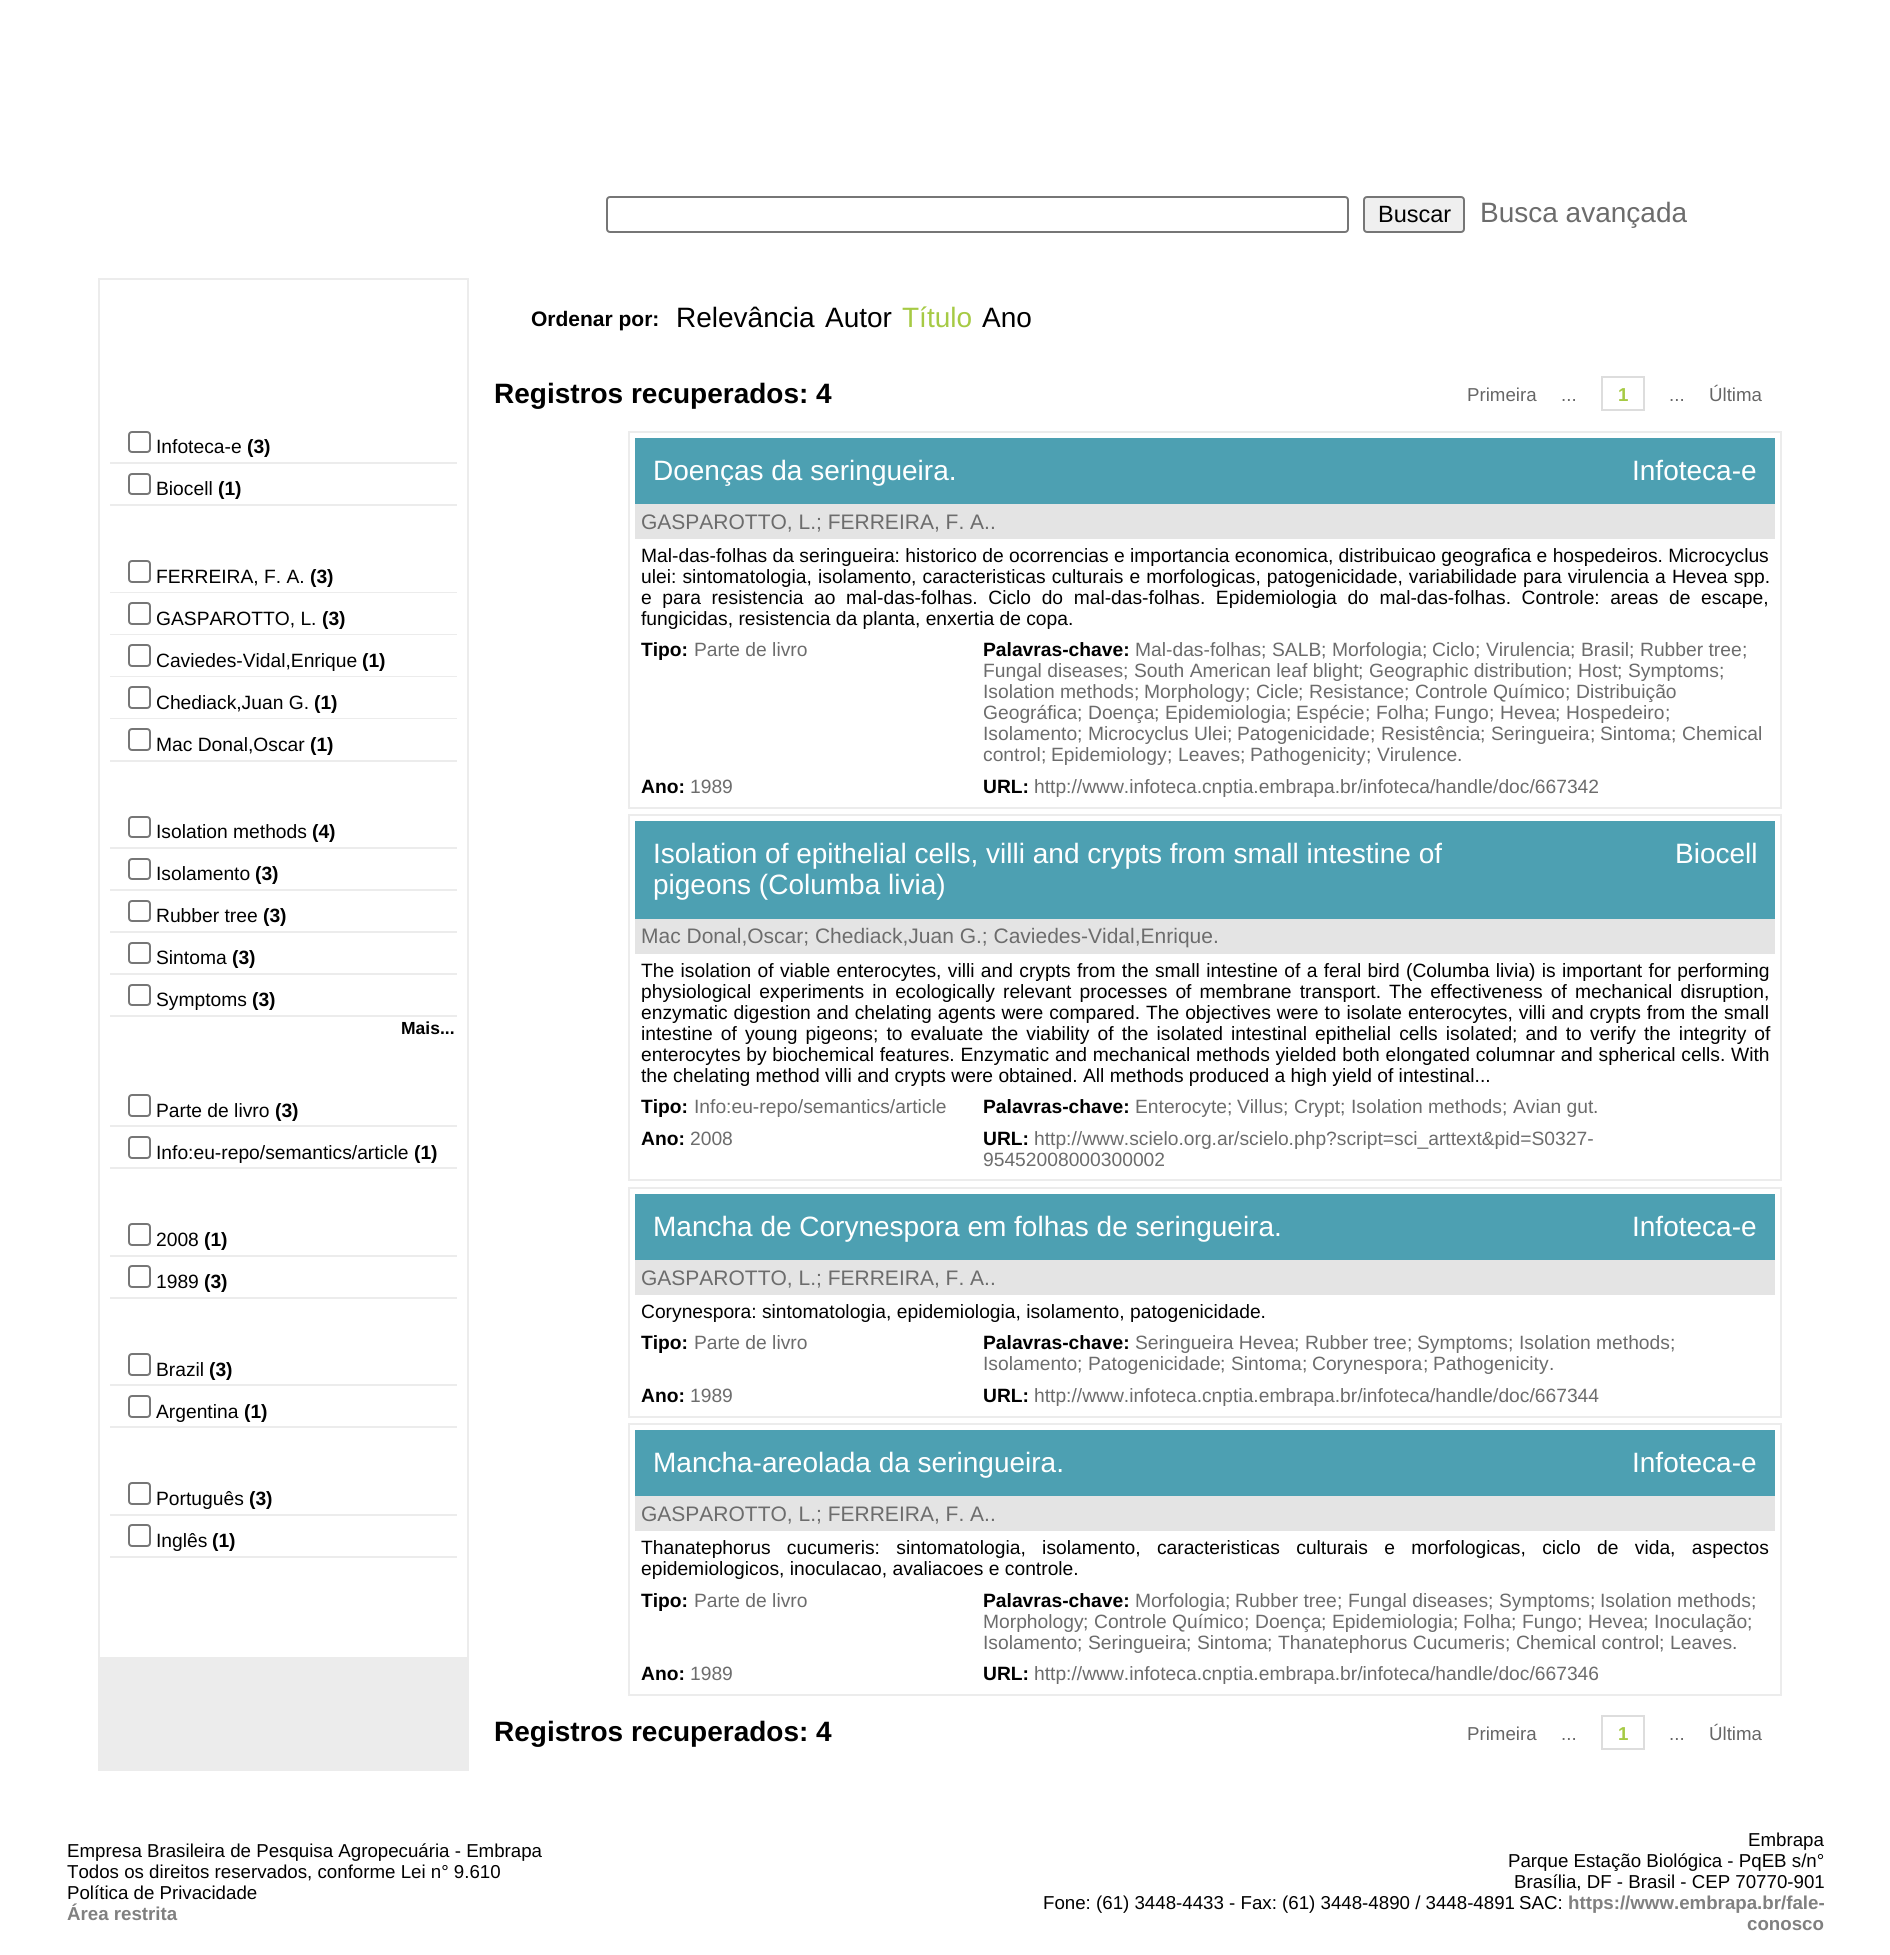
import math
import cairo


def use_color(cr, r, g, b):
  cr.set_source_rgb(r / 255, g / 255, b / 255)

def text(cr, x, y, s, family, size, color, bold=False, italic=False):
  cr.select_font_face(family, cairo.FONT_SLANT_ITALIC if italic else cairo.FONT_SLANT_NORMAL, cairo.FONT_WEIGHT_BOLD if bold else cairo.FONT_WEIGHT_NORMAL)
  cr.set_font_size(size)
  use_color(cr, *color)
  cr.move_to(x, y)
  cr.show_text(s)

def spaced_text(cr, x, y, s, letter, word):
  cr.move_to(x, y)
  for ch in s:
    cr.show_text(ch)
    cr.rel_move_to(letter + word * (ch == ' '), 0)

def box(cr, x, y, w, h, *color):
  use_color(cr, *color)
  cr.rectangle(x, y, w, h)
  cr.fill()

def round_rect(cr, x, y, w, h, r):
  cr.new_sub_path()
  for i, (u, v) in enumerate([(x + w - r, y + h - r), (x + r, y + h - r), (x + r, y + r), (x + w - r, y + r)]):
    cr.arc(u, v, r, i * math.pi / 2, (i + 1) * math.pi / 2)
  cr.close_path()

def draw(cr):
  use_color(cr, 255, 255, 255)
  cr.paint()
  round_rect(cr, 607, 197, 741, 35, 3)
  use_color(cr, 118, 118, 118)
  cr.stroke()
  use_color(cr, 239, 239, 239)
  round_rect(cr, 1364, 197, 100, 35, 3)
  cr.fill_preserve()
  use_color(cr, 118, 118, 118)
  cr.stroke()
  box(cr, 98, 278, 371, 1493, 236, 236, 236)
  box(cr, 100, 280, 367, 1377, 255, 255, 255)
  box(cr, 110, 462, 347, 2, 236, 236, 236)
  round_rect(cr, 129, 432, 21, 20, 3)
  use_color(cr, 118, 118, 118)
  cr.stroke()
  box(cr, 110, 504, 347, 2, 236, 236, 236)
  round_rect(cr, 129, 474, 21, 20, 3)
  use_color(cr, 118, 118, 118)
  cr.stroke()
  box(cr, 110, 592, 347, 1, 236, 236, 236)
  round_rect(cr, 129, 561, 21, 21, 3)
  use_color(cr, 118, 118, 118)
  cr.stroke()
  box(cr, 110, 634, 347, 1, 236, 236, 236)
  round_rect(cr, 129, 603, 21, 21, 3)
  use_color(cr, 118, 118, 118)
  cr.stroke()
  box(cr, 110, 676, 347, 1, 236, 236, 236)
  round_rect(cr, 129, 645, 21, 21, 3)
  use_color(cr, 118, 118, 118)
  cr.stroke()
  box(cr, 110, 718, 347, 1, 236, 236, 236)
  round_rect(cr, 129, 687, 21, 21, 3)
  use_color(cr, 118, 118, 118)
  cr.stroke()
  box(cr, 110, 760, 347, 2, 236, 236, 236)
  round_rect(cr, 129, 729, 21, 21, 3)
  use_color(cr, 118, 118, 118)
  cr.stroke()
  box(cr, 110, 847, 347, 2, 236, 236, 236)
  round_rect(cr, 129, 817, 21, 20, 3)
  use_color(cr, 118, 118, 118)
  cr.stroke()
  box(cr, 110, 889, 347, 2, 236, 236, 236)
  round_rect(cr, 129, 859, 21, 20, 3)
  use_color(cr, 118, 118, 118)
  cr.stroke()
  box(cr, 110, 931, 347, 2, 236, 236, 236)
  round_rect(cr, 129, 901, 21, 20, 3)
  use_color(cr, 118, 118, 118)
  cr.stroke()
  box(cr, 110, 973, 347, 2, 236, 236, 236)
  round_rect(cr, 129, 943, 21, 20, 3)
  use_color(cr, 118, 118, 118)
  cr.stroke()
  box(cr, 110, 1015, 347, 2, 236, 236, 236)
  round_rect(cr, 129, 985, 21, 20, 3)
  use_color(cr, 118, 118, 118)
  cr.stroke()
  box(cr, 110, 1125, 347, 2, 236, 236, 236)
  round_rect(cr, 129, 1095, 21, 21, 3)
  use_color(cr, 118, 118, 118)
  cr.stroke()
  box(cr, 110, 1167, 347, 2, 236, 236, 236)
  round_rect(cr, 129, 1137, 21, 21, 3)
  use_color(cr, 118, 118, 118)
  cr.stroke()
  box(cr, 110, 1255, 347, 2, 236, 236, 236)
  round_rect(cr, 129, 1224, 21, 21, 3)
  use_color(cr, 118, 118, 118)
  cr.stroke()
  box(cr, 110, 1297, 347, 2, 236, 236, 236)
  round_rect(cr, 129, 1266, 21, 21, 3)
  use_color(cr, 118, 118, 118)
  cr.stroke()
  box(cr, 110, 1384, 347, 2, 236, 236, 236)
  round_rect(cr, 129, 1354, 21, 21, 3)
  use_color(cr, 118, 118, 118)
  cr.stroke()
  box(cr, 110, 1426, 347, 2, 236, 236, 236)
  round_rect(cr, 129, 1396, 21, 21, 3)
  use_color(cr, 118, 118, 118)
  cr.stroke()
  box(cr, 110, 1514, 347, 2, 236, 236, 236)
  round_rect(cr, 129, 1483, 21, 21, 3)
  use_color(cr, 118, 118, 118)
  cr.stroke()
  box(cr, 110, 1556, 347, 2, 236, 236, 236)
  round_rect(cr, 129, 1525, 21, 21, 3)
  use_color(cr, 118, 118, 118)
  cr.stroke()
  cr.rectangle(1602, 377, 42, 33)
  use_color(cr, 221, 221, 221)
  cr.stroke()
  cr.rectangle(629, 432, 1152, 376)
  use_color(cr, 236, 236, 236)
  cr.stroke()
  box(cr, 635, 438, 1140, 66, 77, 160, 178)
  box(cr, 635, 504, 1140, 35, 228, 228, 228)
  cr.rectangle(629, 815, 1152, 365)
  use_color(cr, 236, 236, 236)
  cr.stroke()
  box(cr, 635, 821, 1140, 98, 77, 160, 178)
  box(cr, 635, 919, 1140, 35, 228, 228, 228)
  cr.rectangle(629, 1188, 1152, 229)
  use_color(cr, 236, 236, 236)
  cr.stroke()
  box(cr, 635, 1194, 1140, 66, 77, 160, 178)
  box(cr, 635, 1260, 1140, 35, 228, 228, 228)
  cr.rectangle(629, 1424, 1152, 271)
  use_color(cr, 236, 236, 236)
  cr.stroke()
  box(cr, 635, 1430, 1140, 66, 77, 160, 178)
  box(cr, 635, 1496, 1140, 35, 228, 228, 228)
  cr.rectangle(1602, 1716, 42, 33)
  use_color(cr, 221, 221, 221)
  cr.stroke()
  text(cr, 1378, 222, "Buscar", "Liberation Sans", 23.5, (0, 0, 0))
  text(cr, 1480, 222, "Busca avançada", "Liberation Sans", 28, (108, 108, 108))
  text(cr, 156, 453, "Infoteca-e", "Liberation Sans", 19.25, (0, 0, 0))
  text(cr, 247, 453, "(3)", "Liberation Sans", 19.25, (0, 0, 0), bold=True)
  text(cr, 156, 495, "Biocell", "Liberation Sans", 19.25, (0, 0, 0))
  text(cr, 218, 495, "(1)", "Liberation Sans", 19.25, (0, 0, 0), bold=True)
  text(cr, 156, 583, "FERREIRA, F. A.", "Liberation Sans", 19.25, (0, 0, 0))
  text(cr, 310, 583, "(3)", "Liberation Sans", 19.25, (0, 0, 0), bold=True)
  text(cr, 156, 625, "GASPAROTTO, L.", "Liberation Sans", 19.25, (0, 0, 0))
  text(cr, 322, 625, "(3)", "Liberation Sans", 19.25, (0, 0, 0), bold=True)
  text(cr, 156, 667, "Caviedes-Vidal,Enrique", "Liberation Sans", 19.25, (0, 0, 0))
  text(cr, 362, 667, "(1)", "Liberation Sans", 19.25, (0, 0, 0), bold=True)
  text(cr, 156, 709, "Chediack,Juan G.", "Liberation Sans", 19.25, (0, 0, 0))
  text(cr, 314, 709, "(1)", "Liberation Sans", 19.25, (0, 0, 0), bold=True)
  text(cr, 156, 751, "Mac Donal,Oscar", "Liberation Sans", 19.25, (0, 0, 0))
  text(cr, 310, 751, "(1)", "Liberation Sans", 19.25, (0, 0, 0), bold=True)
  text(cr, 156, 838, "Isolation methods", "Liberation Sans", 19.25, (0, 0, 0))
  text(cr, 312, 838, "(4)", "Liberation Sans", 19.25, (0, 0, 0), bold=True)
  text(cr, 156, 880, "Isolamento", "Liberation Sans", 19.25, (0, 0, 0))
  text(cr, 255, 880, "(3)", "Liberation Sans", 19.25, (0, 0, 0), bold=True)
  text(cr, 156, 922, "Rubber tree", "Liberation Sans", 19.25, (0, 0, 0))
  text(cr, 263, 922, "(3)", "Liberation Sans", 19.25, (0, 0, 0), bold=True)
  text(cr, 156, 964, "Sintoma", "Liberation Sans", 19.25, (0, 0, 0))
  text(cr, 232, 964, "(3)", "Liberation Sans", 19.25, (0, 0, 0), bold=True)
  text(cr, 156, 1006, "Symptoms", "Liberation Sans", 19.25, (0, 0, 0))
  text(cr, 252, 1006, "(3)", "Liberation Sans", 19.25, (0, 0, 0), bold=True)
  text(cr, 401, 1034, "Mais...", "Liberation Sans", 17.5, (0, 0, 0), bold=True)
  text(cr, 156, 1117, "Parte de livro", "Liberation Sans", 19.25, (0, 0, 0))
  text(cr, 275, 1117, "(3)", "Liberation Sans", 19.25, (0, 0, 0), bold=True)
  text(cr, 156, 1159, "Info:eu-repo/semantics/article", "Liberation Sans", 19.25, (0, 0, 0))
  text(cr, 414, 1159, "(1)", "Liberation Sans", 19.25, (0, 0, 0), bold=True)
  text(cr, 156, 1246, "2008", "Liberation Sans", 19.25, (0, 0, 0))
  text(cr, 204, 1246, "(1)", "Liberation Sans", 19.25, (0, 0, 0), bold=True)
  text(cr, 156, 1288, "1989", "Liberation Sans", 19.25, (0, 0, 0))
  text(cr, 204, 1288, "(3)", "Liberation Sans", 19.25, (0, 0, 0), bold=True)
  text(cr, 156, 1376, "Brazil", "Liberation Sans", 19.25, (0, 0, 0))
  text(cr, 209, 1376, "(3)", "Liberation Sans", 19.25, (0, 0, 0), bold=True)
  text(cr, 156, 1418, "Argentina", "Liberation Sans", 19.25, (0, 0, 0))
  text(cr, 244, 1418, "(1)", "Liberation Sans", 19.25, (0, 0, 0), bold=True)
  text(cr, 156, 1505, "Português", "Liberation Sans", 19.25, (0, 0, 0))
  text(cr, 249, 1505, "(3)", "Liberation Sans", 19.25, (0, 0, 0), bold=True)
  text(cr, 156, 1547, "Inglês", "Liberation Sans", 19.25, (0, 0, 0))
  text(cr, 212, 1547, "(1)", "Liberation Sans", 19.25, (0, 0, 0), bold=True)
  text(cr, 531, 326, "Ordenar por:", "Liberation Sans", 21, (0, 0, 0), bold=True)
  text(cr, 676, 327, "Relevância", "Liberation Sans", 28, (0, 0, 0))
  text(cr, 825, 327, "Autor", "Liberation Sans", 28, (0, 0, 0))
  text(cr, 902, 327, "Título", "Liberation Sans", 28, (166, 202, 68))
  text(cr, 982, 327, "Ano", "Liberation Sans", 28, (0, 0, 0))
  text(cr, 494, 403, "Registros recuperados: 4", "Liberation Sans", 28, (0, 0, 0), bold=True)
  text(cr, 1467, 401, "Primeira", "Liberation Sans", 18.7, (102, 102, 102))
  text(cr, 1561, 401, "...", "Liberation Sans", 18.7, (102, 102, 102))
  text(cr, 1618, 401, "1", "Liberation Sans", 18.7, (166, 202, 68), bold=True)
  text(cr, 1669, 401, "...", "Liberation Sans", 18.7, (102, 102, 102))
  text(cr, 1709, 401, "Última", "Liberation Sans", 18.7, (102, 102, 102))
  text(cr, 653, 480, "Doenças da seringueira.", "Liberation Sans", 28, (255, 255, 255))
  text(cr, 1632, 480, "Infoteca-e", "Liberation Sans", 28, (255, 255, 255))
  text(cr, 641, 529, "GASPAROTTO, L.; FERREIRA, F. A..", "Liberation Sans", 21, (108, 108, 108))
  text(cr, 641, 562, "Mal-das-folhas da seringueira: historico de ocorrencias e importancia economica, distribuicao geografica e hospedeiros. Microcyclus", "Liberation Sans", 19.25, (0, 0, 0))
  spaced_text(cr, 641, 583, "ulei: sintomatologia, isolamento, caracteristicas culturais e morfologicas, patogenicidade, variabilidade para virulencia a Hevea spp.", 0, 0.75)
  spaced_text(cr, 641, 604, "e para resistencia ao mal-das-folhas. Ciclo do mal-das-folhas. Epidemiologia do mal-das-folhas. Controle: areas de escape,", 0, 5.25)
  text(cr, 641, 625, "fungicidas, resistencia da planta, enxertia de copa.", "Liberation Sans", 19.25, (0, 0, 0))
  text(cr, 641, 656, "Tipo:", "Liberation Sans", 19.25, (0, 0, 0), bold=True)
  text(cr, 694, 656, "Parte de livro", "Liberation Sans", 19.25, (108, 108, 108))
  text(cr, 983, 656, "Palavras-chave:", "Liberation Sans", 19.25, (0, 0, 0), bold=True)
  text(cr, 1135, 656, "Mal-das-folhas", "Liberation Sans", 19.25, (108, 108, 108))
  text(cr, 1261, 656, ";", "Liberation Sans", 19.25, (102, 102, 102))
  text(cr, 1272, 656, "SALB", "Liberation Sans", 19.25, (108, 108, 108))
  text(cr, 1321, 656, ";", "Liberation Sans", 19.25, (102, 102, 102))
  text(cr, 1332, 656, "Morfologia", "Liberation Sans", 19.25, (108, 108, 108))
  text(cr, 1422, 656, ";", "Liberation Sans", 19.25, (102, 102, 102))
  text(cr, 1432, 656, "Ciclo", "Liberation Sans", 19.25, (108, 108, 108))
  text(cr, 1475, 656, ";", "Liberation Sans", 19.25, (102, 102, 102))
  text(cr, 1486, 656, "Virulencia", "Liberation Sans", 19.25, (108, 108, 108))
  text(cr, 1570, 656, ";", "Liberation Sans", 19.25, (102, 102, 102))
  text(cr, 1581, 656, "Brasil", "Liberation Sans", 19.25, (108, 108, 108))
  text(cr, 1629, 656, ";", "Liberation Sans", 19.25, (102, 102, 102))
  text(cr, 1640, 656, "Rubber tree", "Liberation Sans", 19.25, (108, 108, 108))
  text(cr, 1742, 656, ";", "Liberation Sans", 19.25, (102, 102, 102))
  text(cr, 983, 677, "Fungal diseases", "Liberation Sans", 19.25, (108, 108, 108))
  text(cr, 1123, 677, ";", "Liberation Sans", 19.25, (102, 102, 102))
  text(cr, 1134, 677, "South American leaf blight", "Liberation Sans", 19.25, (108, 108, 108))
  text(cr, 1358, 677, ";", "Liberation Sans", 19.25, (102, 102, 102))
  text(cr, 1369, 677, "Geographic distribution", "Liberation Sans", 19.25, (108, 108, 108))
  text(cr, 1567, 677, ";", "Liberation Sans", 19.25, (102, 102, 102))
  text(cr, 1578, 677, "Host", "Liberation Sans", 19.25, (108, 108, 108))
  text(cr, 1617, 677, ";", "Liberation Sans", 19.25, (102, 102, 102))
  text(cr, 1628, 677, "Symptoms", "Liberation Sans", 19.25, (108, 108, 108))
  text(cr, 1719, 677, ";", "Liberation Sans", 19.25, (102, 102, 102))
  text(cr, 983, 698, "Isolation methods", "Liberation Sans", 19.25, (108, 108, 108))
  text(cr, 1134, 698, ";", "Liberation Sans", 19.25, (102, 102, 102))
  text(cr, 1144, 698, "Morphology", "Liberation Sans", 19.25, (108, 108, 108))
  text(cr, 1245, 698, ";", "Liberation Sans", 19.25, (102, 102, 102))
  text(cr, 1256, 698, "Cicle", "Liberation Sans", 19.25, (108, 108, 108))
  text(cr, 1298, 698, ";", "Liberation Sans", 19.25, (102, 102, 102))
  text(cr, 1309, 698, "Resistance", "Liberation Sans", 19.25, (108, 108, 108))
  text(cr, 1404, 698, ";", "Liberation Sans", 19.25, (102, 102, 102))
  text(cr, 1415, 698, "Controle Químico", "Liberation Sans", 19.25, (108, 108, 108))
  text(cr, 1565, 698, ";", "Liberation Sans", 19.25, (102, 102, 102))
  text(cr, 1576, 698, "Distribuição", "Liberation Sans", 19.25, (108, 108, 108))
  text(cr, 983, 719, "Geográfica", "Liberation Sans", 19.25, (108, 108, 108))
  text(cr, 1077, 719, ";", "Liberation Sans", 19.25, (102, 102, 102))
  text(cr, 1088, 719, "Doença", "Liberation Sans", 19.25, (108, 108, 108))
  text(cr, 1154, 719, ";", "Liberation Sans", 19.25, (102, 102, 102))
  text(cr, 1165, 719, "Epidemiologia", "Liberation Sans", 19.25, (108, 108, 108))
  text(cr, 1286, 719, ";", "Liberation Sans", 19.25, (102, 102, 102))
  text(cr, 1296, 719, "Espécie", "Liberation Sans", 19.25, (108, 108, 108))
  text(cr, 1365, 719, ";", "Liberation Sans", 19.25, (102, 102, 102))
  text(cr, 1376, 719, "Folha", "Liberation Sans", 19.25, (108, 108, 108))
  text(cr, 1424, 719, ";", "Liberation Sans", 19.25, (102, 102, 102))
  text(cr, 1434, 719, "Fungo", "Liberation Sans", 19.25, (108, 108, 108))
  text(cr, 1489, 719, ";", "Liberation Sans", 19.25, (102, 102, 102))
  text(cr, 1500, 719, "Hevea", "Liberation Sans", 19.25, (108, 108, 108))
  text(cr, 1555, 719, ";", "Liberation Sans", 19.25, (102, 102, 102))
  text(cr, 1566, 719, "Hospedeiro", "Liberation Sans", 19.25, (108, 108, 108))
  text(cr, 1665, 719, ";", "Liberation Sans", 19.25, (102, 102, 102))
  text(cr, 983, 740, "Isolamento", "Liberation Sans", 19.25, (108, 108, 108))
  text(cr, 1077, 740, ";", "Liberation Sans", 19.25, (102, 102, 102))
  text(cr, 1088, 740, "Microcyclus Ulei", "Liberation Sans", 19.25, (108, 108, 108))
  text(cr, 1227, 740, ";", "Liberation Sans", 19.25, (102, 102, 102))
  text(cr, 1237, 740, "Patogenicidade", "Liberation Sans", 19.25, (108, 108, 108))
  text(cr, 1370, 740, ";", "Liberation Sans", 19.25, (102, 102, 102))
  text(cr, 1381, 740, "Resistência", "Liberation Sans", 19.25, (108, 108, 108))
  text(cr, 1480, 740, ";", "Liberation Sans", 19.25, (102, 102, 102))
  text(cr, 1491, 740, "Seringueira", "Liberation Sans", 19.25, (108, 108, 108))
  text(cr, 1590, 740, ";", "Liberation Sans", 19.25, (102, 102, 102))
  text(cr, 1600, 740, "Sintoma", "Liberation Sans", 19.25, (108, 108, 108))
  text(cr, 1671, 740, ";", "Liberation Sans", 19.25, (102, 102, 102))
  text(cr, 1682, 740, "Chemical", "Liberation Sans", 19.25, (108, 108, 108))
  text(cr, 983, 761, "control", "Liberation Sans", 19.25, (108, 108, 108))
  text(cr, 1041, 761, ";", "Liberation Sans", 19.25, (102, 102, 102))
  text(cr, 1051, 761, "Epidemiology", "Liberation Sans", 19.25, (108, 108, 108))
  text(cr, 1167, 761, ";", "Liberation Sans", 19.25, (102, 102, 102))
  text(cr, 1178, 761, "Leaves", "Liberation Sans", 19.25, (108, 108, 108))
  text(cr, 1240, 761, ";", "Liberation Sans", 19.25, (102, 102, 102))
  text(cr, 1250, 761, "Pathogenicity", "Liberation Sans", 19.25, (108, 108, 108))
  text(cr, 1366, 761, ";", "Liberation Sans", 19.25, (102, 102, 102))
  text(cr, 1377, 761, "Virulence", "Liberation Sans", 19.25, (108, 108, 108))
  text(cr, 1457, 761, ".", "Liberation Sans", 19.25, (102, 102, 102))
  text(cr, 641, 793, "Ano:", "Liberation Sans", 19.25, (0, 0, 0), bold=True)
  text(cr, 690, 793, "1989", "Liberation Sans", 19.25, (108, 108, 108))
  text(cr, 983, 793, "URL:", "Liberation Sans", 19.25, (0, 0, 0), bold=True)
  text(cr, 1034, 793, "http://www.infoteca.cnptia.embrapa.br/infoteca/handle/doc/667342", "Liberation Sans", 19.25, (108, 108, 108))
  text(cr, 653, 863, "Isolation of epithelial cells, villi and crypts from small intestine of", "Liberation Sans", 28, (255, 255, 255))
  text(cr, 653, 894, "pigeons (Columba livia)", "Liberation Sans", 28, (255, 255, 255))
  text(cr, 1675, 863, "Biocell", "Liberation Sans", 28, (255, 255, 255))
  text(cr, 641, 943, "Mac Donal,Oscar; Chediack,Juan G.; Caviedes-Vidal,Enrique.", "Liberation Sans", 21, (108, 108, 108))
  cr.set_font_size(19.25)
  use_color(cr, 0, 0, 0)
  spaced_text(cr, 641, 977, "The isolation of viable enterocytes, villi and crypts from the small intestine of a feral bird (Columba livia) is important for performing", 0, 1)
  spaced_text(cr, 641, 998, "physiological experiments in ecologically relevant processes of membrane transport. The effectiveness of mechanical disruption,", 0, 2.75)
  spaced_text(cr, 641, 1019, "enzymatic digestion and chelating agents were compared. The objectives were to isolate enterocytes, villi and crypts from the small", 0, 0.6)
  spaced_text(cr, 641, 1040, "intestine of young pigeons; to evaluate the viability of the isolated intestinal epithelial cells isolated; and to verify the integrity of", 0, 2.75)
  spaced_text(cr, 641, 1061, "enterocytes by biochemical features. Enzymatic and mechanical methods yielded both elongated columnar and spherical cells. With", 0, 0.4)
  text(cr, 641, 1082, "the chelating method villi and crypts were obtained. All methods produced a high yield of intestinal...", "Liberation Sans", 19.25, (0, 0, 0))
  text(cr, 641, 1113, "Tipo:", "Liberation Sans", 19.25, (0, 0, 0), bold=True)
  text(cr, 694, 1113, "Info:eu-repo/semantics/article", "Liberation Sans", 19.25, (108, 108, 108))
  text(cr, 983, 1113, "Palavras-chave:", "Liberation Sans", 19.25, (0, 0, 0), bold=True)
  text(cr, 1135, 1113, "Enterocyte", "Liberation Sans", 19.25, (108, 108, 108))
  text(cr, 1227, 1113, ";", "Liberation Sans", 19.25, (102, 102, 102))
  text(cr, 1237, 1113, "Villus", "Liberation Sans", 19.25, (108, 108, 108))
  text(cr, 1283, 1113, ";", "Liberation Sans", 19.25, (102, 102, 102))
  text(cr, 1294, 1113, "Crypt", "Liberation Sans", 19.25, (108, 108, 108))
  text(cr, 1340, 1113, ";", "Liberation Sans", 19.25, (102, 102, 102))
  text(cr, 1351, 1113, "Isolation methods", "Liberation Sans", 19.25, (108, 108, 108))
  text(cr, 1502, 1113, ";", "Liberation Sans", 19.25, (102, 102, 102))
  text(cr, 1513, 1113, "Avian gut", "Liberation Sans", 19.25, (108, 108, 108))
  text(cr, 1593, 1113, ".", "Liberation Sans", 19.25, (102, 102, 102))
  text(cr, 641, 1145, "Ano:", "Liberation Sans", 19.25, (0, 0, 0), bold=True)
  text(cr, 690, 1145, "2008", "Liberation Sans", 19.25, (108, 108, 108))
  text(cr, 983, 1145, "URL:", "Liberation Sans", 19.25, (0, 0, 0), bold=True)
  text(cr, 1034, 1145, "http://www.scielo.org.ar/scielo.php?script=sci_arttext&pid=S0327-", "Liberation Sans", 19.25, (108, 108, 108))
  text(cr, 983, 1166, "95452008000300002", "Liberation Sans", 19.25, (108, 108, 108))
  text(cr, 653, 1236, "Mancha de Corynespora em folhas de seringueira.", "Liberation Sans", 28, (255, 255, 255))
  text(cr, 1632, 1236, "Infoteca-e", "Liberation Sans", 28, (255, 255, 255))
  text(cr, 641, 1285, "GASPAROTTO, L.; FERREIRA, F. A..", "Liberation Sans", 21, (108, 108, 108))
  text(cr, 641, 1318, "Corynespora: sintomatologia, epidemiologia, isolamento, patogenicidade.", "Liberation Sans", 19.25, (0, 0, 0))
  text(cr, 641, 1349, "Tipo:", "Liberation Sans", 19.25, (0, 0, 0), bold=True)
  text(cr, 694, 1349, "Parte de livro", "Liberation Sans", 19.25, (108, 108, 108))
  text(cr, 983, 1349, "Palavras-chave:", "Liberation Sans", 19.25, (0, 0, 0), bold=True)
  text(cr, 1135, 1349, "Seringueira Hevea", "Liberation Sans", 19.25, (108, 108, 108))
  text(cr, 1294, 1349, ";", "Liberation Sans", 19.25, (102, 102, 102))
  text(cr, 1305, 1349, "Rubber tree", "Liberation Sans", 19.25, (108, 108, 108))
  text(cr, 1407, 1349, ";", "Liberation Sans", 19.25, (102, 102, 102))
  text(cr, 1417, 1349, "Symptoms", "Liberation Sans", 19.25, (108, 108, 108))
  text(cr, 1508, 1349, ";", "Liberation Sans", 19.25, (102, 102, 102))
  text(cr, 1519, 1349, "Isolation methods", "Liberation Sans", 19.25, (108, 108, 108))
  text(cr, 1670, 1349, ";", "Liberation Sans", 19.25, (102, 102, 102))
  text(cr, 983, 1370, "Isolamento", "Liberation Sans", 19.25, (108, 108, 108))
  text(cr, 1077, 1370, ";", "Liberation Sans", 19.25, (102, 102, 102))
  text(cr, 1088, 1370, "Patogenicidade", "Liberation Sans", 19.25, (108, 108, 108))
  text(cr, 1220, 1370, ";", "Liberation Sans", 19.25, (102, 102, 102))
  text(cr, 1231, 1370, "Sintoma", "Liberation Sans", 19.25, (108, 108, 108))
  text(cr, 1302, 1370, ";", "Liberation Sans", 19.25, (102, 102, 102))
  text(cr, 1312, 1370, "Corynespora", "Liberation Sans", 19.25, (108, 108, 108))
  text(cr, 1423, 1370, ";", "Liberation Sans", 19.25, (102, 102, 102))
  text(cr, 1433, 1370, "Pathogenicity", "Liberation Sans", 19.25, (108, 108, 108))
  text(cr, 1549, 1370, ".", "Liberation Sans", 19.25, (102, 102, 102))
  text(cr, 641, 1402, "Ano:", "Liberation Sans", 19.25, (0, 0, 0), bold=True)
  text(cr, 690, 1402, "1989", "Liberation Sans", 19.25, (108, 108, 108))
  text(cr, 983, 1402, "URL:", "Liberation Sans", 19.25, (0, 0, 0), bold=True)
  text(cr, 1034, 1402, "http://www.infoteca.cnptia.embrapa.br/infoteca/handle/doc/667344", "Liberation Sans", 19.25, (108, 108, 108))
  text(cr, 653, 1472, "Mancha-areolada da seringueira.", "Liberation Sans", 28, (255, 255, 255))
  text(cr, 1632, 1472, "Infoteca-e", "Liberation Sans", 28, (255, 255, 255))
  text(cr, 641, 1521, "GASPAROTTO, L.; FERREIRA, F. A..", "Liberation Sans", 21, (108, 108, 108))
  cr.set_font_size(19.25)
  use_color(cr, 0, 0, 0)
  spaced_text(cr, 641, 1554, "Thanatephorus cucumeris: sintomatologia, isolamento, caracteristicas culturais e morfologicas, ciclo de vida, aspectos", 0, 11)
  text(cr, 641, 1575, "epidemiologicos, inoculacao, avaliacoes e controle.", "Liberation Sans", 19.25, (0, 0, 0))
  text(cr, 641, 1607, "Tipo:", "Liberation Sans", 19.25, (0, 0, 0), bold=True)
  text(cr, 694, 1607, "Parte de livro", "Liberation Sans", 19.25, (108, 108, 108))
  text(cr, 983, 1607, "Palavras-chave:", "Liberation Sans", 19.25, (0, 0, 0), bold=True)
  text(cr, 1135, 1607, "Morfologia", "Liberation Sans", 19.25, (108, 108, 108))
  text(cr, 1225, 1607, ";", "Liberation Sans", 19.25, (102, 102, 102))
  text(cr, 1235, 1607, "Rubber tree", "Liberation Sans", 19.25, (108, 108, 108))
  text(cr, 1337, 1607, ";", "Liberation Sans", 19.25, (102, 102, 102))
  text(cr, 1348, 1607, "Fungal diseases", "Liberation Sans", 19.25, (108, 108, 108))
  text(cr, 1488, 1607, ";", "Liberation Sans", 19.25, (102, 102, 102))
  text(cr, 1499, 1607, "Symptoms", "Liberation Sans", 19.25, (108, 108, 108))
  text(cr, 1590, 1607, ";", "Liberation Sans", 19.25, (102, 102, 102))
  text(cr, 1600, 1607, "Isolation methods", "Liberation Sans", 19.25, (108, 108, 108))
  text(cr, 1751, 1607, ";", "Liberation Sans", 19.25, (102, 102, 102))
  text(cr, 983, 1628, "Morphology", "Liberation Sans", 19.25, (108, 108, 108))
  text(cr, 1083, 1628, ";", "Liberation Sans", 19.25, (102, 102, 102))
  text(cr, 1094, 1628, "Controle Químico", "Liberation Sans", 19.25, (108, 108, 108))
  text(cr, 1244, 1628, ";", "Liberation Sans", 19.25, (102, 102, 102))
  text(cr, 1255, 1628, "Doença", "Liberation Sans", 19.25, (108, 108, 108))
  text(cr, 1321, 1628, ";", "Liberation Sans", 19.25, (102, 102, 102))
  text(cr, 1332, 1628, "Epidemiologia", "Liberation Sans", 19.25, (108, 108, 108))
  text(cr, 1453, 1628, ";", "Liberation Sans", 19.25, (102, 102, 102))
  text(cr, 1463, 1628, "Folha", "Liberation Sans", 19.25, (108, 108, 108))
  text(cr, 1511, 1628, ";", "Liberation Sans", 19.25, (102, 102, 102))
  text(cr, 1522, 1628, "Fungo", "Liberation Sans", 19.25, (108, 108, 108))
  text(cr, 1577, 1628, ";", "Liberation Sans", 19.25, (102, 102, 102))
  text(cr, 1588, 1628, "Hevea", "Liberation Sans", 19.25, (108, 108, 108))
  text(cr, 1643, 1628, ";", "Liberation Sans", 19.25, (102, 102, 102))
  text(cr, 1654, 1628, "Inoculação", "Liberation Sans", 19.25, (108, 108, 108))
  text(cr, 1747, 1628, ";", "Liberation Sans", 19.25, (102, 102, 102))
  text(cr, 983, 1649, "Isolamento", "Liberation Sans", 19.25, (108, 108, 108))
  text(cr, 1077, 1649, ";", "Liberation Sans", 19.25, (102, 102, 102))
  text(cr, 1088, 1649, "Seringueira", "Liberation Sans", 19.25, (108, 108, 108))
  text(cr, 1186, 1649, ";", "Liberation Sans", 19.25, (102, 102, 102))
  text(cr, 1197, 1649, "Sintoma", "Liberation Sans", 19.25, (108, 108, 108))
  text(cr, 1267, 1649, ";", "Liberation Sans", 19.25, (102, 102, 102))
  text(cr, 1278, 1649, "Thanatephorus Cucumeris", "Liberation Sans", 19.25, (108, 108, 108))
  text(cr, 1505, 1649, ";", "Liberation Sans", 19.25, (102, 102, 102))
  text(cr, 1516, 1649, "Chemical control", "Liberation Sans", 19.25, (108, 108, 108))
  text(cr, 1659, 1649, ";", "Liberation Sans", 19.25, (102, 102, 102))
  text(cr, 1670, 1649, "Leaves", "Liberation Sans", 19.25, (108, 108, 108))
  text(cr, 1732, 1649, ".", "Liberation Sans", 19.25, (102, 102, 102))
  text(cr, 641, 1680, "Ano:", "Liberation Sans", 19.25, (0, 0, 0), bold=True)
  text(cr, 690, 1680, "1989", "Liberation Sans", 19.25, (108, 108, 108))
  text(cr, 983, 1680, "URL:", "Liberation Sans", 19.25, (0, 0, 0), bold=True)
  text(cr, 1034, 1680, "http://www.infoteca.cnptia.embrapa.br/infoteca/handle/doc/667346", "Liberation Sans", 19.25, (108, 108, 108))
  text(cr, 494, 1741, "Registros recuperados: 4", "Liberation Sans", 28, (0, 0, 0), bold=True)
  text(cr, 1467, 1740, "Primeira", "Liberation Sans", 18.7, (102, 102, 102))
  text(cr, 1561, 1740, "...", "Liberation Sans", 18.7, (102, 102, 102))
  text(cr, 1618, 1740, "1", "Liberation Sans", 18.7, (166, 202, 68), bold=True)
  text(cr, 1669, 1740, "...", "Liberation Sans", 18.7, (102, 102, 102))
  text(cr, 1709, 1740, "Última", "Liberation Sans", 18.7, (102, 102, 102))
  text(cr, 67, 1857, "Empresa Brasileira de Pesquisa Agropecuária - Embrapa", "Liberation Sans", 18.7, (0, 0, 0))
  text(cr, 67, 1878, "Todos os direitos reservados, conforme Lei n° 9.610", "Liberation Sans", 18.7, (0, 0, 0))
  text(cr, 67, 1899, "Política de Privacidade", "Liberation Sans", 18.7, (0, 0, 0))
  text(cr, 67, 1920, "Área restrita", "Liberation Sans", 18.7, (128, 128, 128), bold=True)
  text(cr, 1748, 1846, "Embrapa", "Liberation Sans", 18.7, (0, 0, 0))
  text(cr, 1508, 1867, "Parque Estação Biológica - PqEB s/n°", "Liberation Sans", 18.7, (0, 0, 0))
  text(cr, 1514, 1888, "Brasília, DF - Brasil - CEP 70770-901", "Liberation Sans", 18.7, (0, 0, 0))
  text(cr, 1043, 1909, "Fone: (61) 3448-4433 - Fax: (61) 3448-4890 / 3448-4891", "Liberation Sans", 18.7, (0, 0, 0))
  text(cr, 1519, 1909, "SAC:", "Liberation Sans", 18.7, (0, 0, 0))
  text(cr, 1568, 1909, "https://www.embrapa.br/fale-", "Liberation Sans", 18.7, (128, 128, 128), bold=True)
  text(cr, 1747, 1930, "conosco", "Liberation Sans", 18.7, (128, 128, 128), bold=True)


surface = cairo.ImageSurface(cairo.FORMAT_RGB24, 1890, 1955)
cr = cairo.Context(surface)
options = cairo.FontOptions()
options.set_hint_metrics(cairo.HINT_METRICS_OFF)
options.set_hint_style(cairo.HINT_STYLE_NONE)
cr.set_font_options(options)
cr.set_miter_limit(4)
draw(cr)
surface.write_to_png("out.png")
